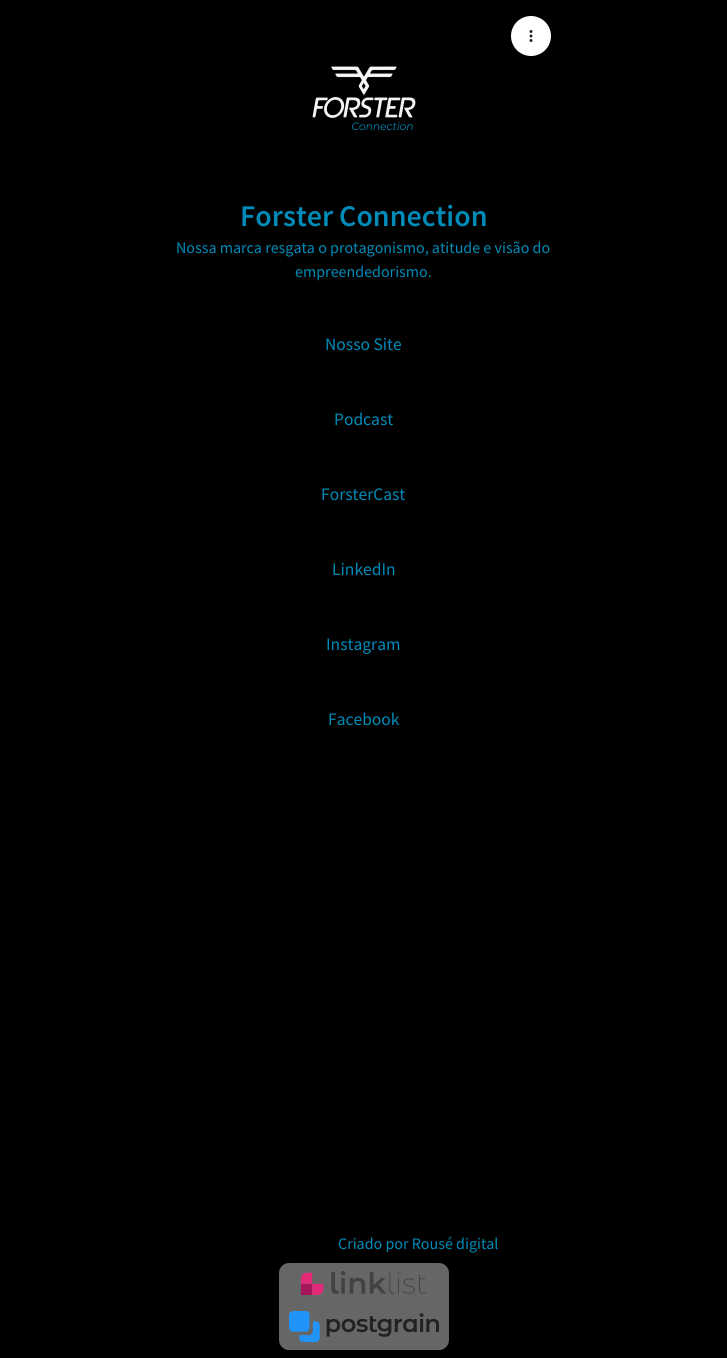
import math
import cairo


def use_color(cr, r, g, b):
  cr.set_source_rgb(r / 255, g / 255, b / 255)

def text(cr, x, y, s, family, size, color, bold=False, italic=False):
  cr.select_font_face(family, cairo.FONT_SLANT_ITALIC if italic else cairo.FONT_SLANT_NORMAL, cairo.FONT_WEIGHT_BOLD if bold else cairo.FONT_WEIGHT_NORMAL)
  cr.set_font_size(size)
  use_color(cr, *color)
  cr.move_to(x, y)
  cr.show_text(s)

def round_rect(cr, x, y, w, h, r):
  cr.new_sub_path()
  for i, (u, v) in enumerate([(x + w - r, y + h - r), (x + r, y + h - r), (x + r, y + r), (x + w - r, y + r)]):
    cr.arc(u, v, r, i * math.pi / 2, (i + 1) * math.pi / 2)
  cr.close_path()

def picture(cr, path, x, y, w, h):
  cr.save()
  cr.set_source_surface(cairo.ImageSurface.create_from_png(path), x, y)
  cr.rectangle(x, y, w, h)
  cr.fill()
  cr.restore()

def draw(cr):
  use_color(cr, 0, 0, 0)
  cr.paint()
  use_color(cr, 255, 255, 255)
  cr.arc(531, 36, 20, 0, 2 * math.pi)
  cr.fill()
  picture(cr, "img_01.png", 529, 30, 4, 12)
  picture(cr, "img_02.png", 312, 66, 104, 65)
  use_color(cr, 102, 102, 102)
  round_rect(cr, 279, 1263, 170, 87, 10)
  cr.fill()
  picture(cr, "img_03.png", 301, 1271, 125, 24)
  picture(cr, "img_04.png", 289, 1311, 150, 31)
  text(cr, 240, 226, "Forster Connection", "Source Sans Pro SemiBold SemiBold", 30, (0, 139, 185))
  text(cr, 176, 253, "Nossa marca resgata o protagonismo, atitude e visão do", "Source Sans Pro", 16, (0, 139, 185))
  text(cr, 295, 277, "empreendedorismo.", "Source Sans Pro", 16, (0, 139, 185))
  text(cr, 325, 350, "Nosso Site", "Source Sans Pro", 17.5, (0, 139, 185))
  text(cr, 334, 425, "Podcast", "Source Sans Pro", 17.5, (0, 139, 185))
  text(cr, 321, 500, "ForsterCast", "Source Sans Pro", 17.5, (0, 139, 185))
  text(cr, 332, 575, "LinkedIn", "Source Sans Pro", 17.5, (0, 139, 185))
  text(cr, 326, 650, "Instagram", "Source Sans Pro", 17.5, (0, 139, 185))
  text(cr, 328, 725, "Facebook", "Source Sans Pro", 17.5, (0, 139, 185))
  text(cr, 338, 1249, "Criado por Rousé digital", "Source Sans Pro", 16, (0, 139, 185))


surface = cairo.ImageSurface(cairo.FORMAT_RGB24, 727, 1358)
cr = cairo.Context(surface)
options = cairo.FontOptions()
options.set_hint_metrics(cairo.HINT_METRICS_OFF)
options.set_hint_style(cairo.HINT_STYLE_NONE)
cr.set_font_options(options)
cr.set_miter_limit(4)
draw(cr)
surface.write_to_png("out.png")
